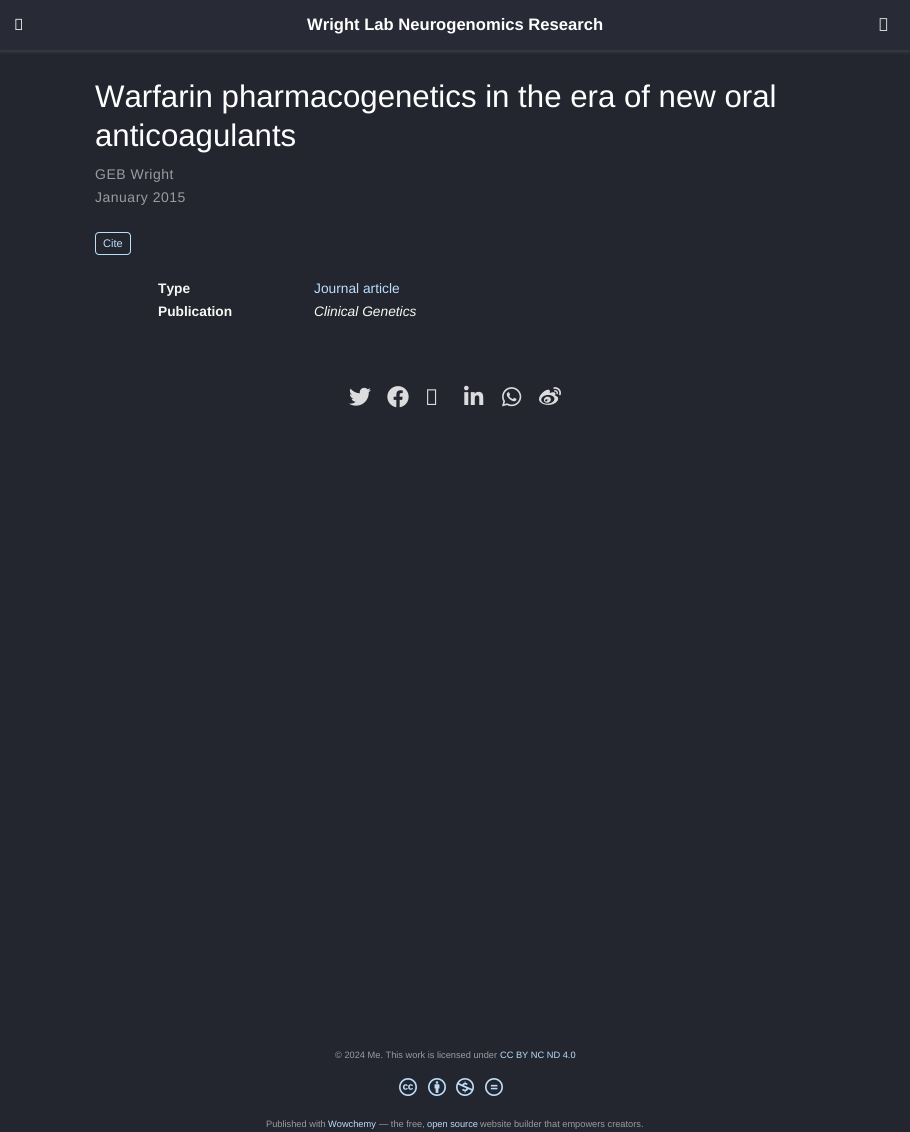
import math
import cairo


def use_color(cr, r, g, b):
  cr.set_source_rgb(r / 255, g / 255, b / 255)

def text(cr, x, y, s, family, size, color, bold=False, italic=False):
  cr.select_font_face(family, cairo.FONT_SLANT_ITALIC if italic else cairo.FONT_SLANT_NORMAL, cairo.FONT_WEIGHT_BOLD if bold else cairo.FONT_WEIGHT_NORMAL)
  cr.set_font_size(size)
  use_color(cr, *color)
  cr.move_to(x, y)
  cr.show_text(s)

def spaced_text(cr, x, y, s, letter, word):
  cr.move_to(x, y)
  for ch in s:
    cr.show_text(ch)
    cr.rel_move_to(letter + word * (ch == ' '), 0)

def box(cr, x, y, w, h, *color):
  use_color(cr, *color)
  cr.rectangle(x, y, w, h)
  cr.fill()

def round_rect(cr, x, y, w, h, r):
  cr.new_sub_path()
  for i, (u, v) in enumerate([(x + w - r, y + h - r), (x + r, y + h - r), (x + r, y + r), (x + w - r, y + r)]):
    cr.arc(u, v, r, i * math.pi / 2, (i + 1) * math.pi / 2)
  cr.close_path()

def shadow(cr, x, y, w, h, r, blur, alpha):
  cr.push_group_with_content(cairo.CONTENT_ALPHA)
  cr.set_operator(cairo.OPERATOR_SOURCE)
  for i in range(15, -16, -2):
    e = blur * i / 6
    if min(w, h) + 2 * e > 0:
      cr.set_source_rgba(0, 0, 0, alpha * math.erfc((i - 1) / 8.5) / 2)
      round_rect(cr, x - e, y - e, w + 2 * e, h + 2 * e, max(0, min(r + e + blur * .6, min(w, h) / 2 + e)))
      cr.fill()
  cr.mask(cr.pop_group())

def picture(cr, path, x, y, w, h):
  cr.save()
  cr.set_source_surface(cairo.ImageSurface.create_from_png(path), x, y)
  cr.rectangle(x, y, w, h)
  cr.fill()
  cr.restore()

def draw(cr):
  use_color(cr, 35, 37, 47)
  cr.paint()
  use_color(cr, 255, 255, 255)
  shadow(cr, 0, 2, 910, 50, 0, 1.5, 0.11)
  box(cr, 0, 0, 910, 50, 40, 42, 54)
  picture(cr, "img_01.png", 15, 18, 7, 12)
  picture(cr, "img_02.png", 879, 18, 9, 13)
  round_rect(cr, 95.5, 232.5, 35, 22, 3.5)
  use_color(cr, 187, 222, 251)
  cr.set_line_width(1)
  cr.stroke()
  picture(cr, "img_03.png", 349, 387, 22, 19)
  picture(cr, "img_04.png", 387, 386, 22, 22)
  picture(cr, "img_05.png", 427, 389, 10, 16)
  picture(cr, "img_06.png", 464, 385, 20, 20)
  picture(cr, "img_07.png", 502, 387, 20, 20)
  picture(cr, "img_08.png", 539, 387, 22, 18)
  picture(cr, "img_09.png", 399, 1078, 18, 18)
  picture(cr, "img_10.png", 428, 1078, 18, 18)
  picture(cr, "img_11.png", 456, 1078, 18, 18)
  picture(cr, "img_12.png", 485, 1078, 18, 18)
  text(cr, 307, 30, "Wright Lab Neurogenomics Research", "Liberation Sans", 16.6, (255, 255, 255), bold=True)
  text(cr, 95, 107, "Warfarin pharmacogenetics in the era of new oral", "Liberation Sans", 31.2, (255, 255, 255))
  text(cr, 95, 146, "anticoagulants", "Liberation Sans", 31.2, (255, 255, 255))
  cr.set_font_size(14)
  use_color(cr, 154, 155, 159)
  spaced_text(cr, 95, 179, "GEB Wright", 0.5, 0)
  spaced_text(cr, 95, 202, "January 2015", 0.5, 0)
  text(cr, 103, 247, "Cite", "Liberation Sans", 11, (187, 222, 251))
  text(cr, 158, 293, "Type", "Liberation Sans", 13.75, (248, 248, 242), bold=True)
  text(cr, 314, 293, "Journal article", "Liberation Sans", 13.75, (187, 222, 251))
  text(cr, 158, 316, "Publication", "Liberation Sans", 13.75, (248, 248, 242), bold=True)
  text(cr, 314, 316, "Clinical Genetics", "Liberation Sans", 13.75, (248, 248, 242), italic=True)
  text(cr, 335, 1058, "© 2024 Me. This work is licensed under", "Liberation Sans", 9.25, (154, 155, 159))
  text(cr, 500, 1058, "CC BY NC ND 4.0", "Liberation Sans", 9.25, (187, 222, 251))
  text(cr, 266, 1127, "Published with", "Liberation Sans", 9.25, (154, 155, 159))
  text(cr, 328, 1127, "Wowchemy", "Liberation Sans", 9.25, (187, 222, 251))
  text(cr, 379, 1127, "— the free,", "Liberation Sans", 9.25, (154, 155, 159))
  text(cr, 427, 1127, "open source", "Liberation Sans", 9.25, (187, 222, 251))
  text(cr, 480, 1127, "website builder that empowers creators.", "Liberation Sans", 9.25, (154, 155, 159))


surface = cairo.ImageSurface(cairo.FORMAT_RGB24, 910, 1132)
cr = cairo.Context(surface)
options = cairo.FontOptions()
options.set_hint_metrics(cairo.HINT_METRICS_OFF)
options.set_hint_style(cairo.HINT_STYLE_NONE)
cr.set_font_options(options)
cr.set_miter_limit(4)
draw(cr)
surface.write_to_png("out.png")
